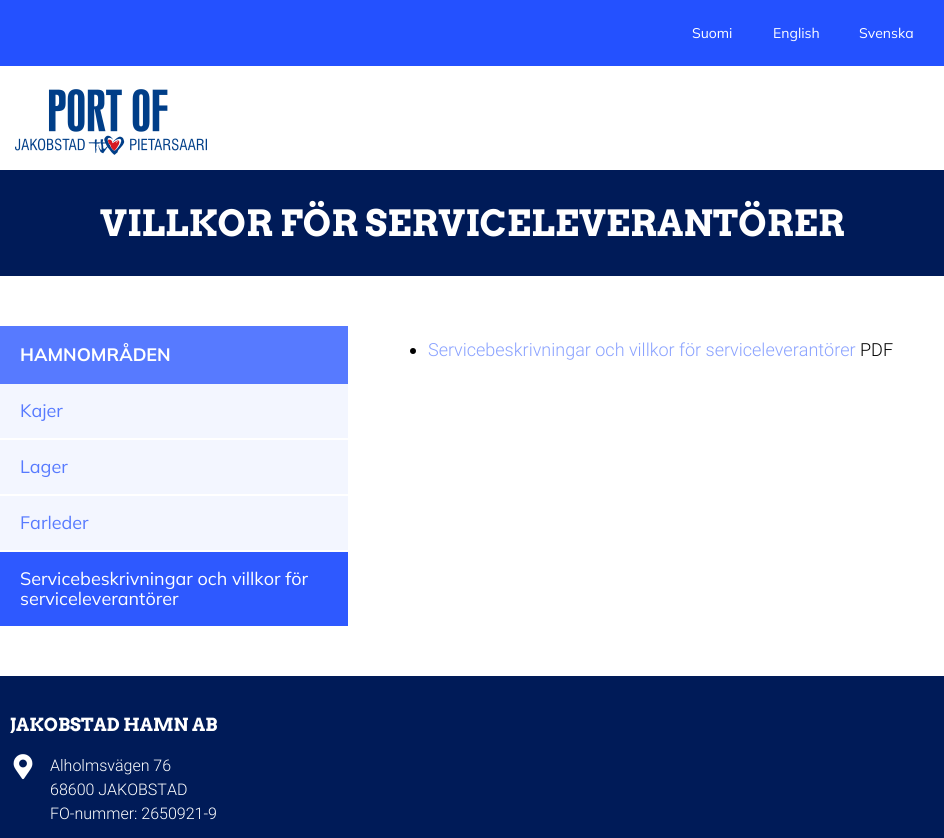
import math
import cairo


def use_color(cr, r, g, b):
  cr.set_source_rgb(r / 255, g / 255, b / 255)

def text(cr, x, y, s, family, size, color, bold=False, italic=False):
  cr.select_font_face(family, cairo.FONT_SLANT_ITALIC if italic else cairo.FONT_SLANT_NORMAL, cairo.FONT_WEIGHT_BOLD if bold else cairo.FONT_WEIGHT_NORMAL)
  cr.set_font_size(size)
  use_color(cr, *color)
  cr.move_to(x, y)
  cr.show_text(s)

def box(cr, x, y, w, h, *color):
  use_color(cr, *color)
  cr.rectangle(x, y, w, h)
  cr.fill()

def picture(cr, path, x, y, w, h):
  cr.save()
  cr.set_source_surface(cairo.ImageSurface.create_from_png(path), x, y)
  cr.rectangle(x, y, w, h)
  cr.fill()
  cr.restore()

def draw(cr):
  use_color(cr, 255, 255, 255)
  cr.paint()
  box(cr, 0, 0, 944, 66, 36, 81, 255)
  picture(cr, "img_01.png", 15, 89, 192, 66)
  box(cr, 0, 170, 944, 106, 0, 27, 88)
  box(cr, 0, 326, 348, 58, 87, 122, 255)
  box(cr, 0, 384, 348, 54, 243, 246, 255)
  box(cr, 0, 440, 348, 54, 243, 246, 255)
  box(cr, 0, 496, 348, 54, 243, 246, 255)
  box(cr, 0, 552, 348, 74, 46, 89, 255)
  use_color(cr, 0, 0, 0)
  cr.arc(413, 351, 3, 0, 2 * math.pi)
  cr.fill()
  box(cr, 0, 676, 944, 162, 0, 27, 88)
  picture(cr, "img_02.png", 13, 754, 20, 26)
  text(cr, 692, 38, "Suomi", "Mulish", 14, (255, 255, 255))
  text(cr, 773, 38, "English", "Mulish", 14, (255, 255, 255))
  text(cr, 859, 38, "Svenska", "Mulish", 14, (255, 255, 255))
  text(cr, 100, 236, "VILLKOR FÖR SERVICELEVERANTÖRER", "Arvo", 36, (255, 255, 255), bold=True)
  text(cr, 20, 361, "HAMNOMRÅDEN", "Mulish", 18, (255, 255, 255), bold=True)
  text(cr, 20, 417, "Kajer", "Mulish", 18, (87, 122, 255))
  text(cr, 20, 473, "Lager", "Mulish", 18, (87, 122, 255))
  text(cr, 20, 529, "Farleder", "Mulish", 18, (87, 122, 255))
  text(cr, 20, 585, "Servicebeskrivningar och villkor för", "Mulish", 18, (255, 255, 255))
  text(cr, 20, 605, "serviceleverantörer", "Mulish", 18, (255, 255, 255))
  text(cr, 428, 356, "Servicebeskrivningar och villkor för serviceleverantörer", "Roboto Light", 18, (138, 162, 255))
  text(cr, 860, 356, "PDF", "Roboto Light", 18, (0, 0, 0))
  text(cr, 10, 731, "JAKOBSTAD HAMN AB", "Arvo", 18, (255, 255, 255), bold=True)
  text(cr, 50, 771, "Alholmsvägen 76", "Roboto Light", 16, (255, 255, 255))
  text(cr, 50, 795, "68600 JAKOBSTAD", "Roboto Light", 16, (255, 255, 255))
  text(cr, 50, 819, "FO-nummer: 2650921-9", "Roboto Light", 16, (255, 255, 255))


surface = cairo.ImageSurface(cairo.FORMAT_RGB24, 944, 838)
cr = cairo.Context(surface)
options = cairo.FontOptions()
options.set_hint_metrics(cairo.HINT_METRICS_OFF)
options.set_hint_style(cairo.HINT_STYLE_NONE)
cr.set_font_options(options)
cr.set_miter_limit(4)
draw(cr)
surface.write_to_png("out.png")
